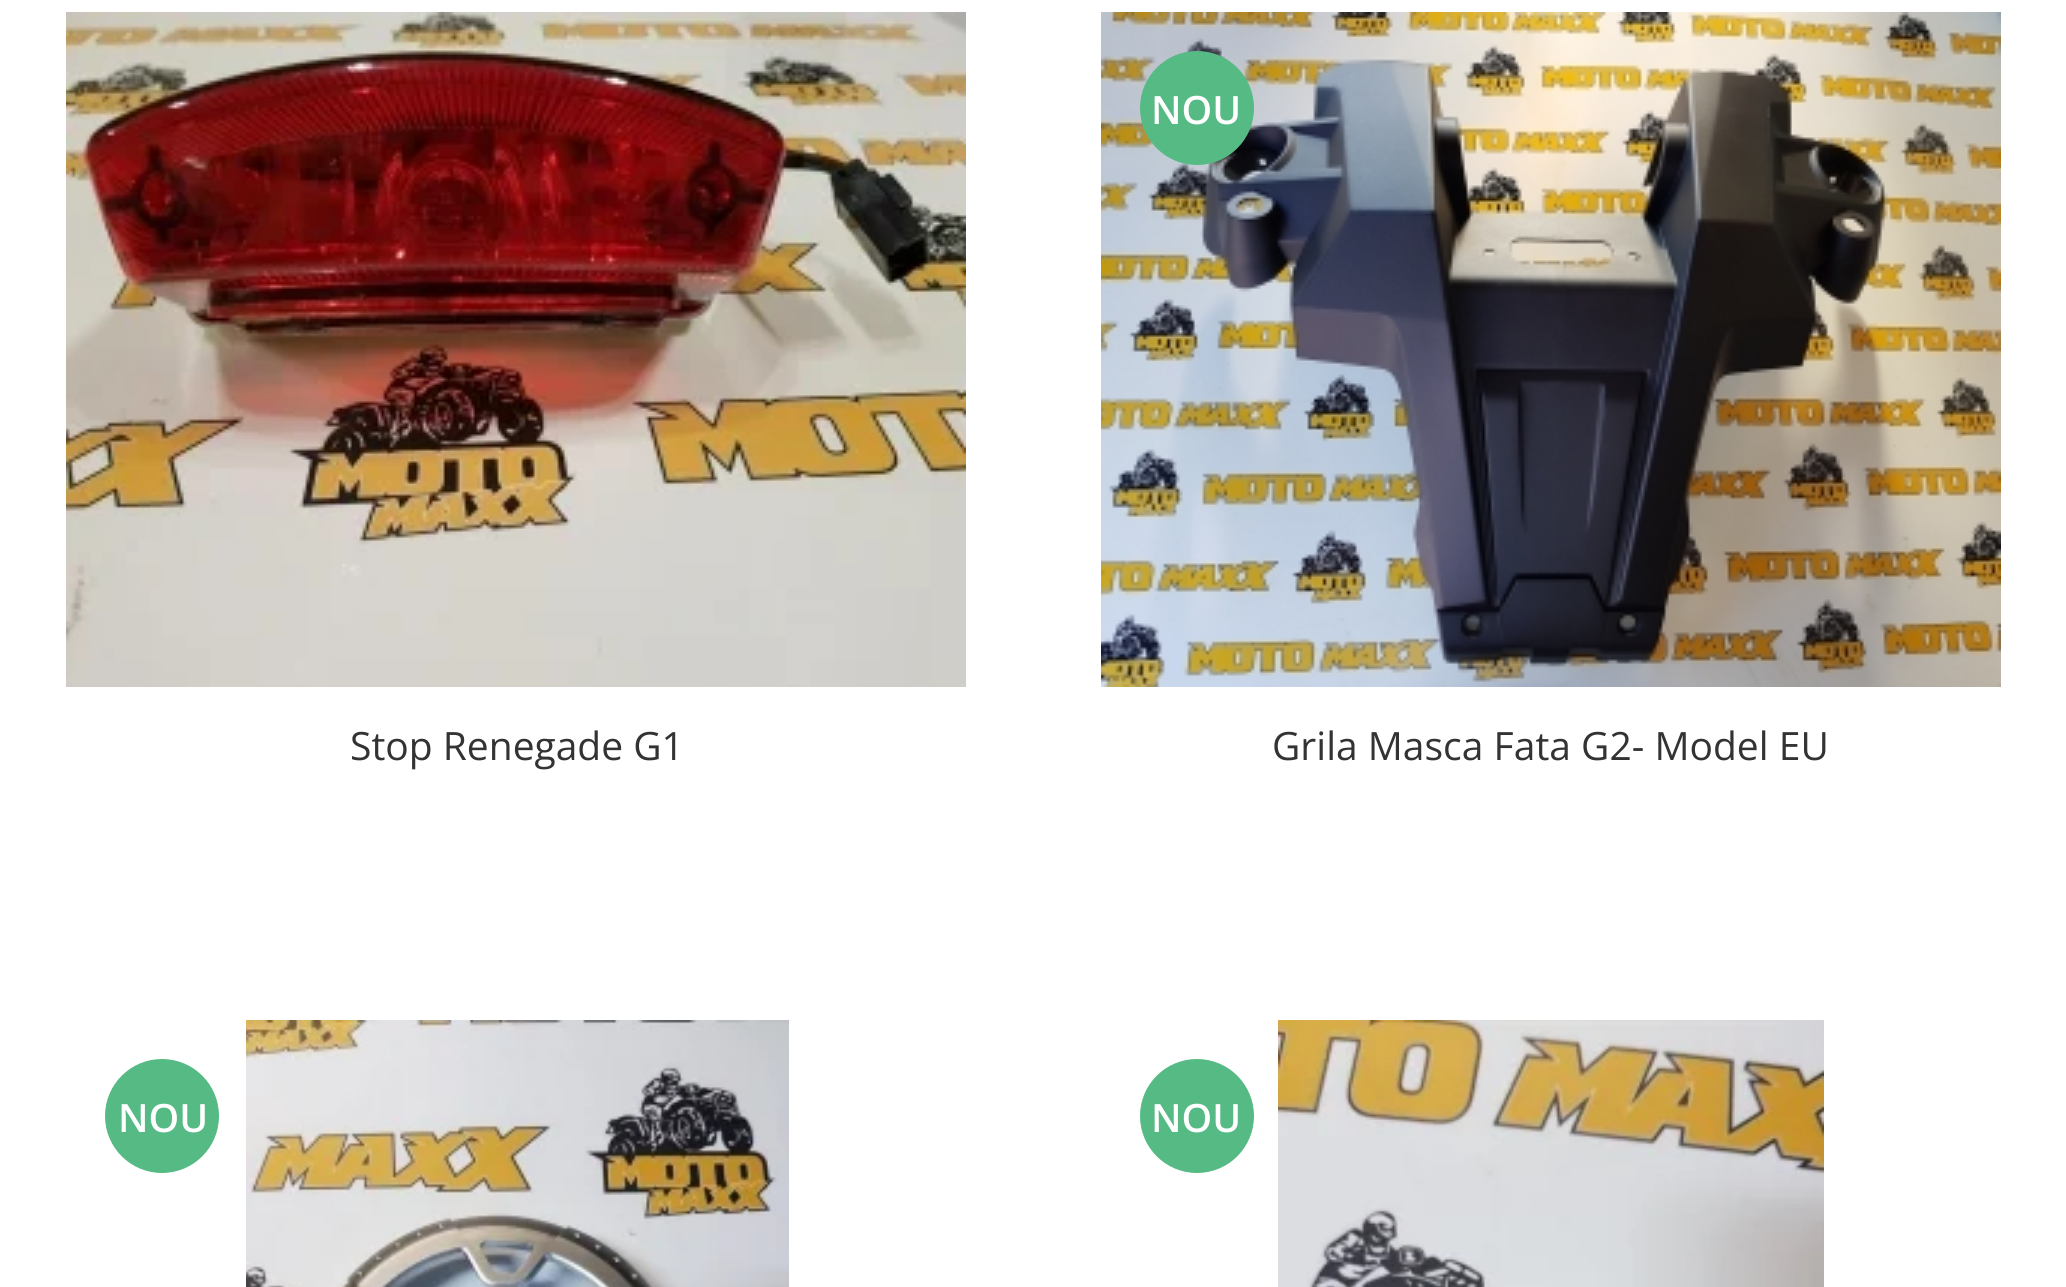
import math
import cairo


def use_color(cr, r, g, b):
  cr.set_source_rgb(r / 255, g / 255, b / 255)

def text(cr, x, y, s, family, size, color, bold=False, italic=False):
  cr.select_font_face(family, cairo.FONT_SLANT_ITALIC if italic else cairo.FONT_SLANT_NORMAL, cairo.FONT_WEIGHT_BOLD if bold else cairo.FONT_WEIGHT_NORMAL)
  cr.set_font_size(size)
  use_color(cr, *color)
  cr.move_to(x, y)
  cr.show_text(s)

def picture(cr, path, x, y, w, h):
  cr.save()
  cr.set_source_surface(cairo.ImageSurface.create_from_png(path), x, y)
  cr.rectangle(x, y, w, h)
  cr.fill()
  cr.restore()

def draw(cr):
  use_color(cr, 255, 255, 255)
  cr.paint()
  picture(cr, "img_01.png", 66, 12, 900, 675)
  picture(cr, "img_02.png", 1101, 12, 900, 675)
  use_color(cr, 86, 186, 132)
  cr.arc(1197, 108, 57, 0, 2 * math.pi)
  cr.fill()
  cr.arc(162, 1116, 57, 0, 2 * math.pi)
  cr.fill()
  picture(cr, "img_03.png", 246, 1020, 543, 267)
  cr.arc(1197, 1116, 57, 0, 2 * math.pi)
  cr.fill()
  picture(cr, "img_04.png", 1278, 1020, 546, 267)
  text(cr, 350, 760, "Stop Renegade G1", "Open Sans", 39, (51, 51, 51))
  text(cr, 1151, 124, "NOU", "Open Sans SemiBold", 39, (255, 255, 255))
  text(cr, 1272, 760, "Grila Masca Fata G2- Model EU", "Open Sans", 39, (51, 51, 51))
  text(cr, 118, 1132, "NOU", "Open Sans SemiBold", 39, (255, 255, 255))
  text(cr, 1151, 1132, "NOU", "Open Sans SemiBold", 39, (255, 255, 255))


surface = cairo.ImageSurface(cairo.FORMAT_RGB24, 2066, 1287)
cr = cairo.Context(surface)
options = cairo.FontOptions()
options.set_hint_metrics(cairo.HINT_METRICS_OFF)
options.set_hint_style(cairo.HINT_STYLE_NONE)
cr.set_font_options(options)
cr.set_miter_limit(4)
draw(cr)
surface.write_to_png("out.png")
